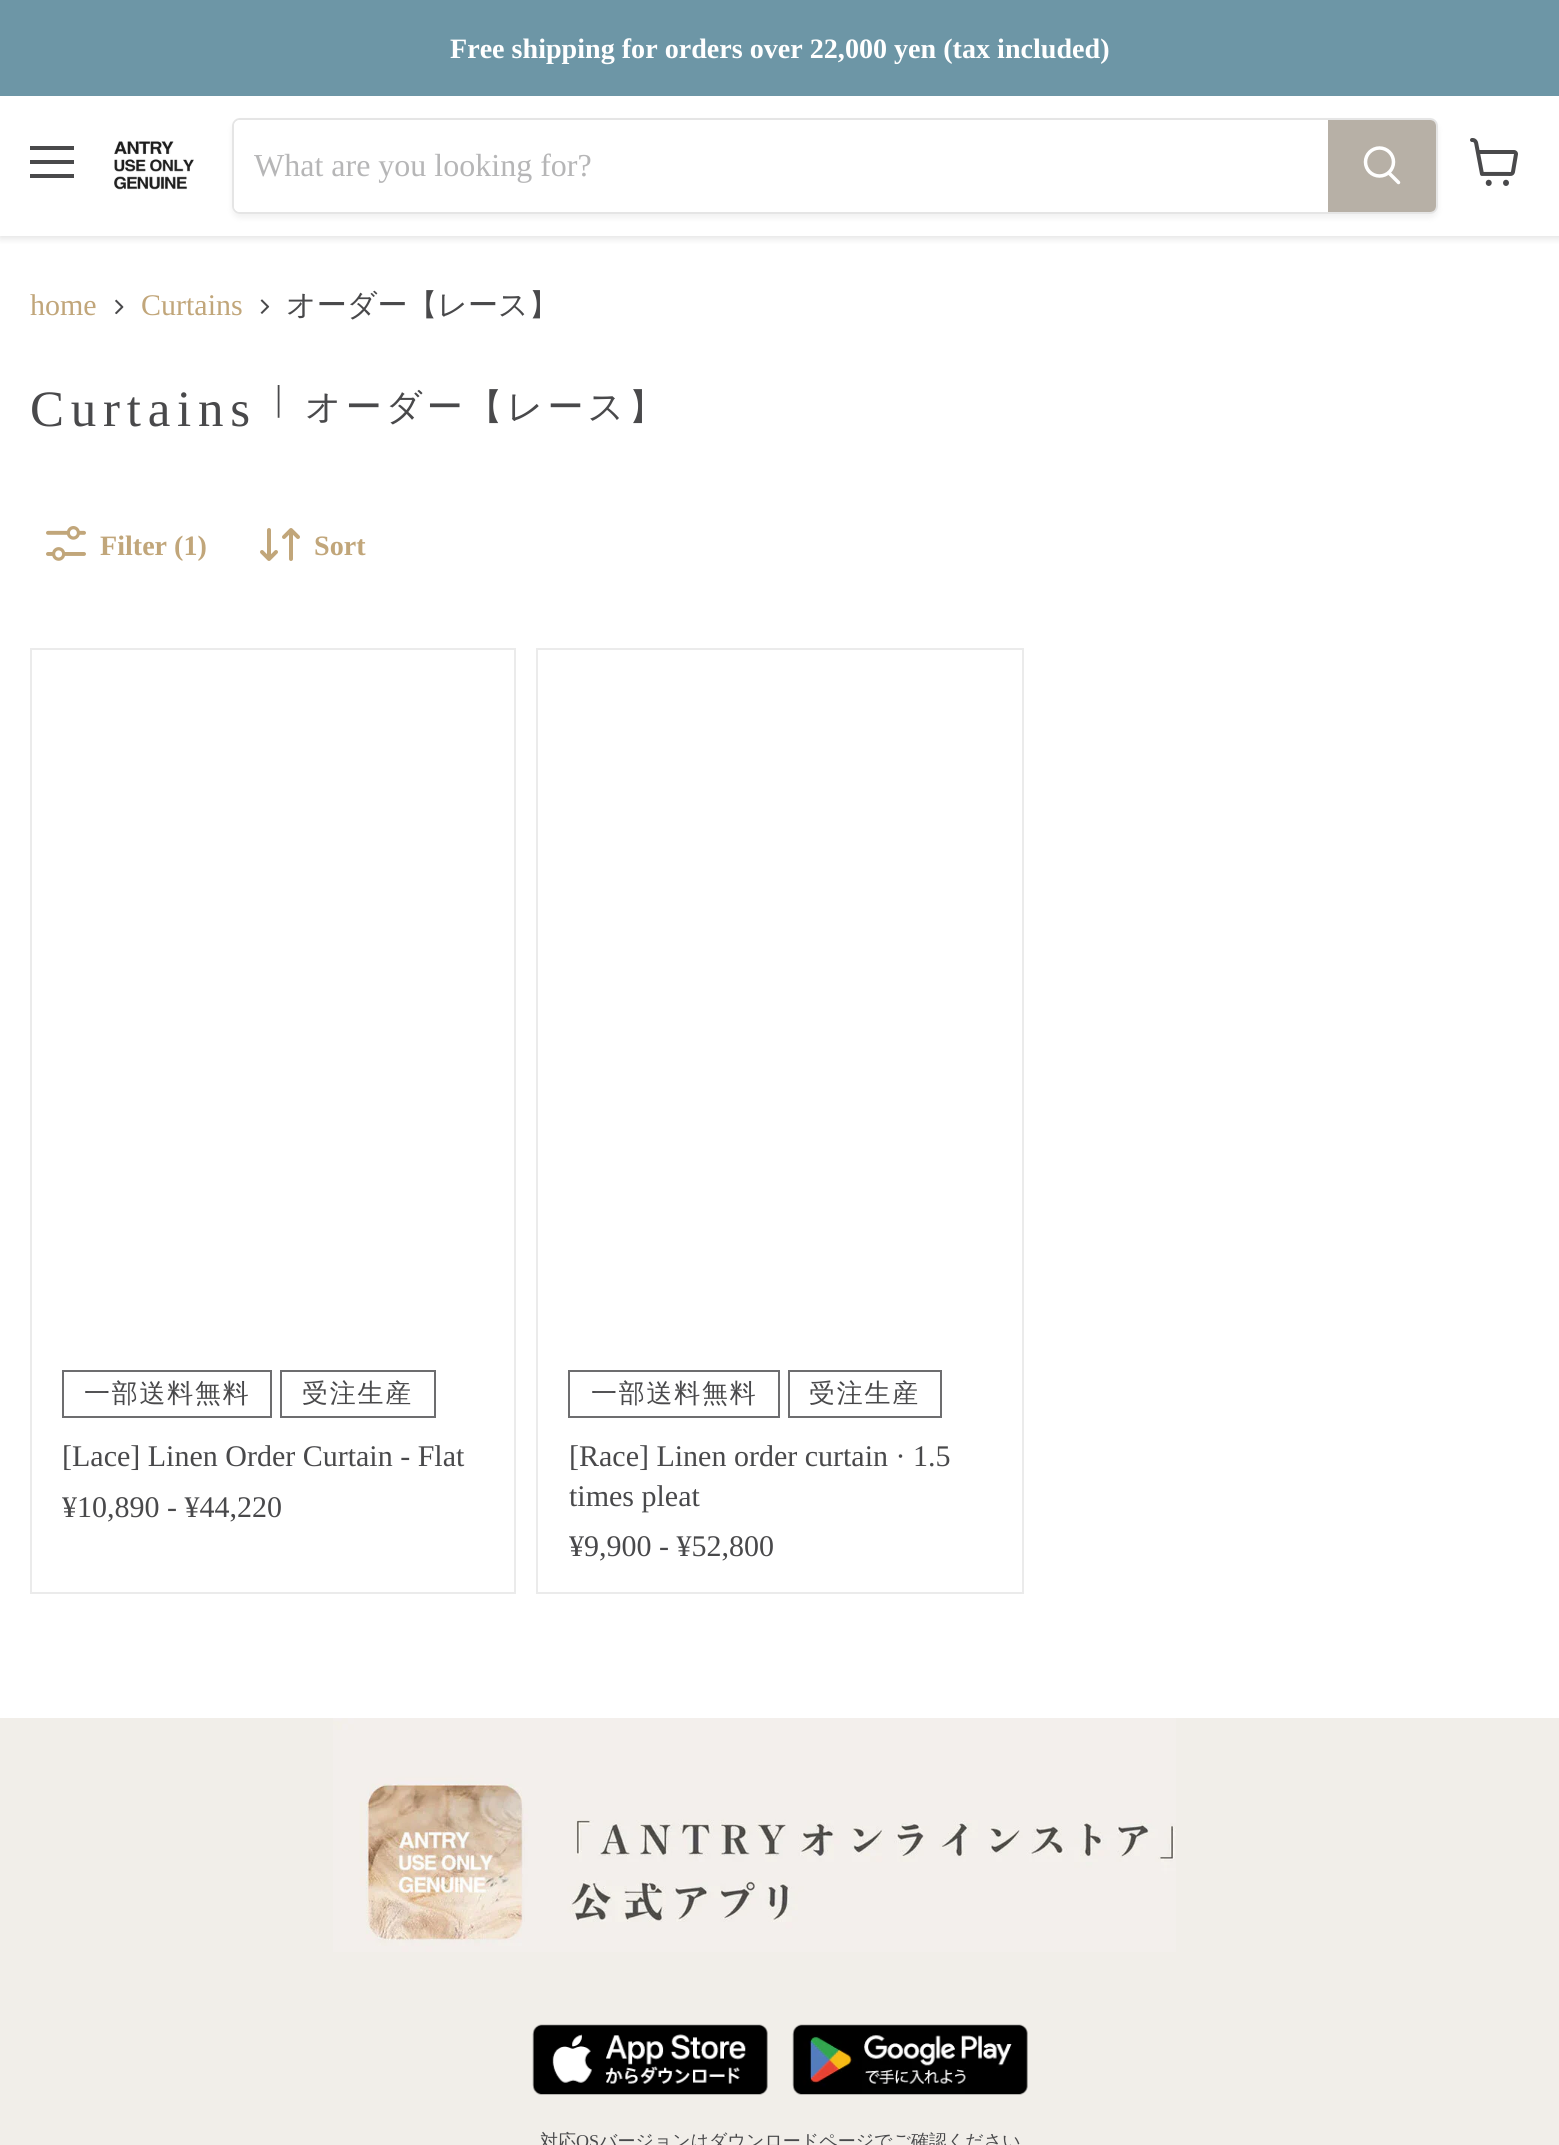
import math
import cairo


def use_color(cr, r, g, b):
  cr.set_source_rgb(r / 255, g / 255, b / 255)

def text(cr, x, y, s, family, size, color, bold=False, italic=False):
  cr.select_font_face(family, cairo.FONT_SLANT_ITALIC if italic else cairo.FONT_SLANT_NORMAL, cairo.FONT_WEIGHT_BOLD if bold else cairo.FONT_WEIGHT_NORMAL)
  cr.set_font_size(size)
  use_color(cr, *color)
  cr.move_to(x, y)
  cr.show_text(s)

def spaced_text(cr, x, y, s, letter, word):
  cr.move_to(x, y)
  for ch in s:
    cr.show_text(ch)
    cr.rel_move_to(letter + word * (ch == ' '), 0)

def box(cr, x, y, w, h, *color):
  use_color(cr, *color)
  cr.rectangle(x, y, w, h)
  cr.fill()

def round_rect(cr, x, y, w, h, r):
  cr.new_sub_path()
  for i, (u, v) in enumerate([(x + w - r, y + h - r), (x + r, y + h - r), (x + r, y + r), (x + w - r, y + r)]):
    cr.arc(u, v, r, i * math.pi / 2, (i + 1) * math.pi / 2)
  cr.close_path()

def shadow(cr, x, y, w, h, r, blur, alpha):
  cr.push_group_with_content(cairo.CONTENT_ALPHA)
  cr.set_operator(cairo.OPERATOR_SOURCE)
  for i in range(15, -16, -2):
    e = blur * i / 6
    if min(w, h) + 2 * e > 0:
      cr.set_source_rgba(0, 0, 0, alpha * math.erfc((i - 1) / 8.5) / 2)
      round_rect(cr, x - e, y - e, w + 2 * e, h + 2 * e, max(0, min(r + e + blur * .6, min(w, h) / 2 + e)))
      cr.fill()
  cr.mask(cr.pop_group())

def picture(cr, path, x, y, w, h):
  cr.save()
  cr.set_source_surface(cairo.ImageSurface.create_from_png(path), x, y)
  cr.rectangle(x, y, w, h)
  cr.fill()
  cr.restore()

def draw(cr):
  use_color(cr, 255, 255, 255)
  cr.paint()
  cr.save()
  cr.rectangle(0, 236, 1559, 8)
  cr.clip()
  use_color(cr, 128, 128, 128)
  shadow(cr, 0, 98, 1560, 140, 0, 4, 0.25)
  cr.restore()
  box(cr, 0, 0, 1559, 96, 109, 150, 166)
  box(cr, 30, 146, 44, 4, 73, 73, 75)
  box(cr, 30, 160, 44, 4, 73, 73, 75)
  box(cr, 30, 174, 44, 4, 73, 73, 75)
  picture(cr, "img_01.png", 114, 141, 80, 49)
  cr.save()
  cr.set_fill_rule(cairo.FILL_RULE_EVEN_ODD)
  cr.new_path()
  cr.move_to(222, 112)
  cr.line_to(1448, 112)
  cr.line_to(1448, 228)
  cr.line_to(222, 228)
  cr.close_path()
  cr.move_to(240, 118)
  cr.line_to(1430, 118)
  cr.curve_to(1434.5, 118, 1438, 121.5, 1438, 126)
  cr.line_to(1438, 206)
  cr.curve_to(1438, 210.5, 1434.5, 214, 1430, 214)
  cr.line_to(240, 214)
  cr.curve_to(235.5, 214, 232, 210.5, 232, 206)
  cr.line_to(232, 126)
  cr.curve_to(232, 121.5, 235.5, 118, 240, 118)
  cr.close_path()
  cr.clip()
  use_color(cr, 128, 128, 128)
  shadow(cr, 232, 122, 1206, 96, 8, 3, 0.11)
  cr.restore()
  round_rect(cr, 233, 119, 1204, 94, 7)
  cr.set_source_rgba(0.502, 0.502, 0.502, 0.2)
  cr.stroke()
  use_color(cr, 255, 255, 255)
  cr.new_path()
  cr.move_to(240, 120)
  cr.line_to(1328, 120)
  cr.line_to(1328, 212)
  cr.line_to(240, 212)
  cr.curve_to(236.5, 212, 234, 209.5, 234, 206)
  cr.line_to(234, 126)
  cr.curve_to(234, 122.5, 236.5, 120, 240, 120)
  cr.close_path()
  cr.fill()
  use_color(cr, 183, 176, 166)
  cr.new_path()
  cr.move_to(1329, 121)
  cr.line_to(1430, 121)
  cr.curve_to(1433, 121, 1435, 123, 1435, 126)
  cr.line_to(1435, 206)
  cr.curve_to(1435, 209, 1433, 211, 1430, 211)
  cr.line_to(1329, 211)
  cr.close_path()
  cr.fill_preserve()
  cr.stroke()
  cr.new_path()
  cr.move_to(1398.5, 182.5)
  cr.line_to(1389, 173)
  use_color(cr, 255, 255, 255)
  cr.set_line_width(3.5)
  cr.set_line_cap(cairo.LINE_CAP_ROUND)
  cr.stroke()
  cr.arc(1379.5, 162, 14, 0, 2 * math.pi)
  cr.set_line_cap(cairo.LINE_CAP_BUTT)
  cr.stroke()
  picture(cr, "img_02.png", 1470, 138, 48, 48)
  picture(cr, "img_03.png", 115, 299, 9, 16)
  picture(cr, "img_04.png", 260, 299, 10, 15)
  picture(cr, "img_05.png", 46, 526, 40, 35)
  picture(cr, "img_06.png", 260, 528, 40, 33)
  cr.rectangle(31, 649, 484, 944)
  use_color(cr, 235, 235, 235)
  cr.set_line_width(2)
  cr.stroke()
  cr.rectangle(63, 1371, 208, 46)
  use_color(cr, 109, 109, 111)
  cr.stroke()
  cr.rectangle(281, 1371, 154, 46)
  cr.stroke()
  cr.rectangle(537, 649, 486, 944)
  use_color(cr, 235, 235, 235)
  cr.stroke()
  cr.rectangle(569, 1371, 210, 46)
  use_color(cr, 109, 109, 111)
  cr.stroke()
  cr.rectangle(789, 1371, 152, 46)
  cr.stroke()
  box(cr, 0, 1718, 1559, 427, 241, 238, 233)
  picture(cr, "img_07.png", 333, 1718, 843, 234)
  picture(cr, "img_08.png", 532, 2024, 236, 71)
  picture(cr, "img_09.png", 792, 2024, 236, 71)
  text(cr, 450, 58, "Free shipping for orders over 22,000 yen (tax included)", "Liberation Serif", 28.1, (255, 255, 255), bold=True)
  text(cr, 254, 176, "What are you looking for?", "Liberation Serif", 32, (182, 182, 183))
  text(cr, 30, 315, "home", "Liberation Serif", 30, (193, 166, 122))
  text(cr, 141, 315, "Curtains", "Liberation Serif", 30, (193, 166, 122))
  text(cr, 286, 315, "オーダー【レース】", "WenQuanYi Zen Hei Medium", 30, (73, 73, 75))
  cr.select_font_face("Liberation Serif")
  cr.set_font_size(51)
  spaced_text(cr, 30, 426, "Curtains", 6.75, 0)
  cr.set_font_size(36)
  spaced_text(cr, 275, 410, "|", 6.75, 0)
  cr.select_font_face("WenQuanYi Zen Hei Medium")
  spaced_text(cr, 305, 419, "オーダー【レース】", 4, 0)
  text(cr, 100, 555, "Filter (1)", "Liberation Serif", 28.1, (193, 166, 122), bold=True)
  text(cr, 314, 555, "Sort", "Liberation Serif", 28.1, (193, 166, 122), bold=True)
  cr.select_font_face("WenQuanYi Zen Hei Medium")
  cr.set_font_size(26)
  use_color(cr, 73, 73, 75)
  spaced_text(cr, 84, 1402, "一部送料無料", 1.75, 0)
  spaced_text(cr, 302, 1402, "受注生産", 1.75, 0)
  text(cr, 62, 1466, "[Lace] Linen Order Curtain - Flat", "Liberation Serif", 30, (73, 73, 75))
  text(cr, 62, 1517, "¥10,890 - ¥44,220", "Liberation Serif", 30, (73, 73, 75))
  cr.select_font_face("WenQuanYi Zen Hei Medium")
  cr.set_font_size(26)
  spaced_text(cr, 591, 1402, "一部送料無料", 1.75, 0)
  spaced_text(cr, 809, 1402, "受注生産", 1.75, 0)
  text(cr, 569, 1466, "[Race] Linen order curtain · 1.5", "Liberation Serif", 30, (73, 73, 75))
  text(cr, 569, 1506, "times pleat", "Liberation Serif", 30, (73, 73, 75))
  text(cr, 569, 1556, "¥9,900 - ¥52,800", "Liberation Serif", 30, (73, 73, 75))
  text(cr, 540, 2147, "対応", "WenQuanYi Zen Hei Medium", 18, (73, 73, 75))
  text(cr, 576, 2147, "OS", "Liberation Serif", 18, (73, 73, 75))
  text(cr, 599, 2147, "バージョンはダウンロードページでご確認ください", "WenQuanYi Zen Hei Medium", 18, (73, 73, 75))


surface = cairo.ImageSurface(cairo.FORMAT_RGB24, 1559, 2145)
cr = cairo.Context(surface)
options = cairo.FontOptions()
options.set_hint_metrics(cairo.HINT_METRICS_OFF)
options.set_hint_style(cairo.HINT_STYLE_NONE)
cr.set_font_options(options)
cr.set_miter_limit(4)
draw(cr)
surface.write_to_png("out.png")
